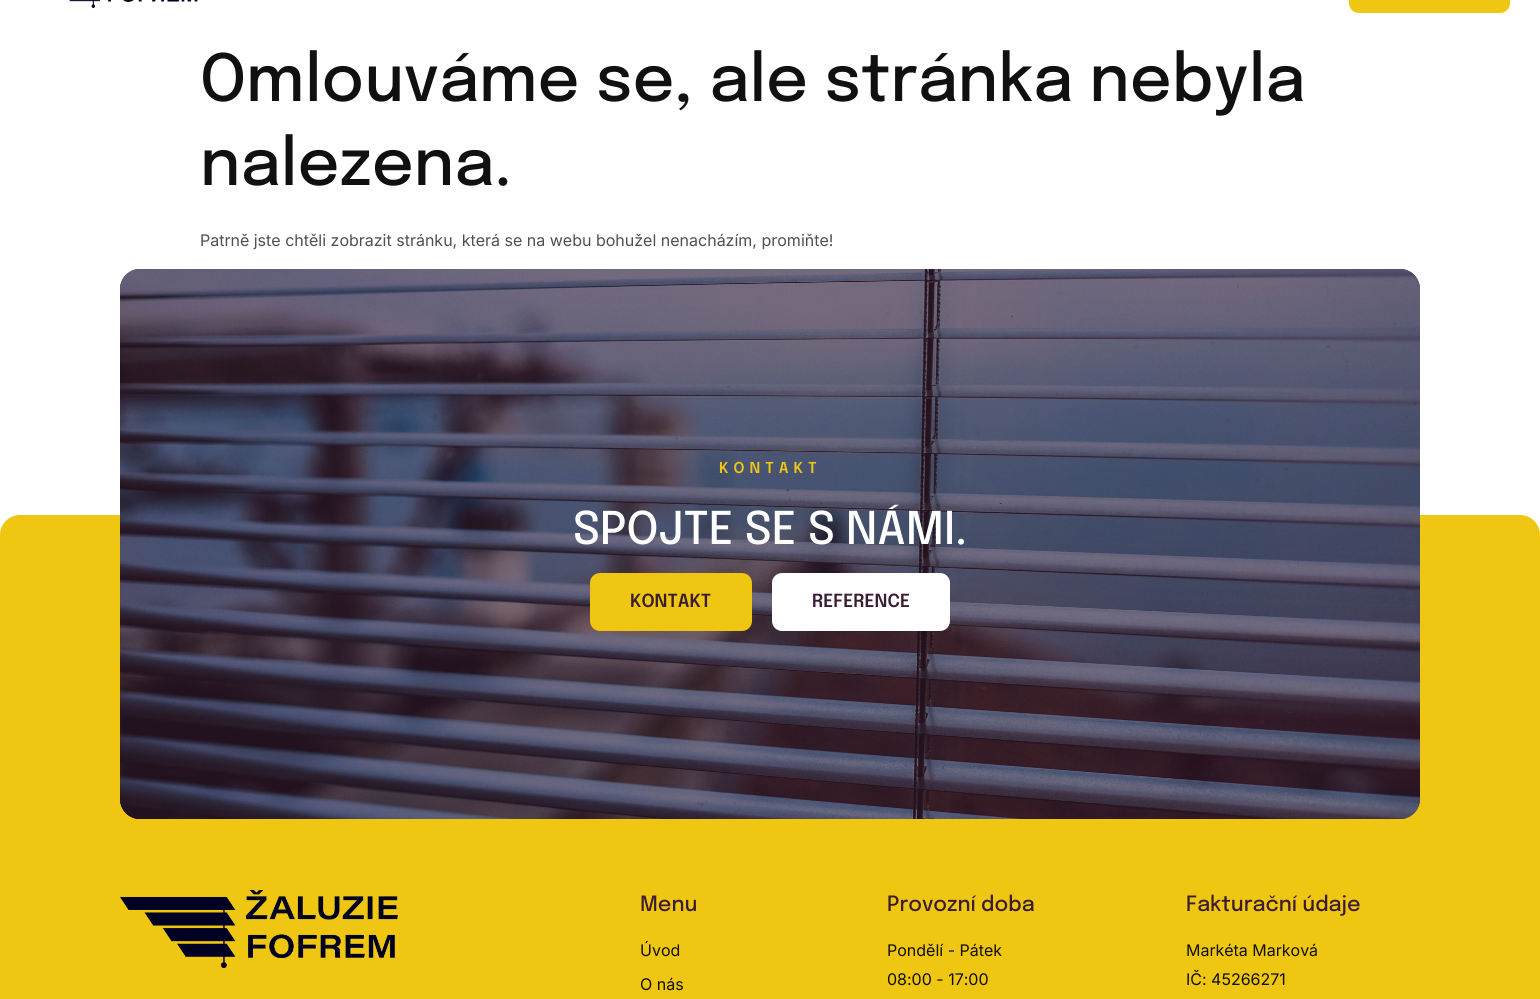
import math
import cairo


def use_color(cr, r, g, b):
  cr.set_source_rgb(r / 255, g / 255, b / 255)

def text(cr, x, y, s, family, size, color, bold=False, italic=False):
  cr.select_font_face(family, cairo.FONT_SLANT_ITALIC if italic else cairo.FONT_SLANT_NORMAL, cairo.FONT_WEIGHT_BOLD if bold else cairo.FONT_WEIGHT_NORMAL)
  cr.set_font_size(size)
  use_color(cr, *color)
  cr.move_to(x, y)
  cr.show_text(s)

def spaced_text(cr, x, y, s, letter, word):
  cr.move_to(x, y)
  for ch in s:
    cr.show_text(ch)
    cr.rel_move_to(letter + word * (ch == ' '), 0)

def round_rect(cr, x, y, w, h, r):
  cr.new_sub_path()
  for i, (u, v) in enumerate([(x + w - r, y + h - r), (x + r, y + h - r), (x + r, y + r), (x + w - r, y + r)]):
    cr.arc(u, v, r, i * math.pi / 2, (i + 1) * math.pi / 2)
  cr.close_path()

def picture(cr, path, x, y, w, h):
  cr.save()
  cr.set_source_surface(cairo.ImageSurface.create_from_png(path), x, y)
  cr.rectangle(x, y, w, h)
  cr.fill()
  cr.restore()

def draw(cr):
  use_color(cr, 255, 255, 255)
  cr.paint()
  picture(cr, "img_01.png", 69, 0, 129, 8)
  use_color(cr, 239, 198, 17)
  round_rect(cr, 1349, -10, 161, 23, 10)
  cr.fill()
  cr.new_path()
  cr.move_to(20, 515)
  cr.line_to(1520, 515)
  cr.curve_to(1531, 515, 1540, 524, 1540, 535)
  cr.line_to(1540, 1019)
  cr.line_to(0, 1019)
  cr.line_to(0, 535)
  cr.curve_to(0, 524, 9, 515, 20, 515)
  cr.close_path()
  cr.fill()
  use_color(cr, 58, 29, 51)
  round_rect(cr, 120, 269, 1300, 550, 20)
  cr.fill()
  picture(cr, "img_02.png", 120, 269, 1300, 550)
  cr.set_source_rgba(0.227, 0.114, 0.2, 0.6)
  round_rect(cr, 120, 269, 1300, 550, 20)
  cr.fill()
  use_color(cr, 239, 198, 17)
  round_rect(cr, 590, 573, 162, 58, 10)
  cr.fill()
  use_color(cr, 255, 255, 255)
  round_rect(cr, 772, 573, 178, 58, 10)
  cr.fill()
  picture(cr, "img_03.png", 120, 890, 278, 78)
  text(cr, 200, 101, "Omlouváme se, ale stránka nebyla", "Epilogue Medium", 65, (16, 16, 16))
  text(cr, 200, 185, "nalezena.", "Epilogue Medium", 65, (16, 16, 16))
  text(cr, 200, 246, "Patrně jste chtěli zobrazit stránku, která se na webu bohužel nenacházím, promiňte!", "Inter", 16, (80, 80, 80))
  cr.select_font_face("Epilogue SemiBold")
  cr.set_font_size(15)
  use_color(cr, 239, 198, 17)
  spaced_text(cr, 719, 473, "KONTAKT", 5, 0)
  text(cr, 573, 544, "SPOJTE SE S NÁMI.", "Epilogue Medium", 45, (255, 255, 255))
  text(cr, 630, 607, "KONTAKT", "Epilogue SemiBold", 18, (58, 29, 51))
  text(cr, 812, 607, "REFERENCE", "Epilogue SemiBold", 18, (58, 29, 51))
  text(cr, 640, 911, "Menu", "Epilogue Medium", 21, (58, 29, 51))
  text(cr, 640, 956, "Úvod", "Inter", 16, (16, 16, 16))
  text(cr, 640, 990, "O nás", "Inter", 16, (16, 16, 16))
  text(cr, 887, 911, "Provozní doba", "Epilogue Medium", 21, (58, 29, 51))
  text(cr, 887, 956, "Pondělí - Pátek", "Inter", 16, (16, 16, 16))
  text(cr, 887, 985, "08:00 - 17:00", "Inter", 16, (16, 16, 16))
  text(cr, 1186, 911, "Fakturační údaje", "Epilogue Medium", 21, (58, 29, 51))
  text(cr, 1186, 956, "Markéta Marková", "Inter", 16, (16, 16, 16))
  text(cr, 1186, 985, "IČ: 45266271", "Inter", 16, (16, 16, 16))


surface = cairo.ImageSurface(cairo.FORMAT_RGB24, 1540, 999)
cr = cairo.Context(surface)
options = cairo.FontOptions()
options.set_hint_metrics(cairo.HINT_METRICS_OFF)
options.set_hint_style(cairo.HINT_STYLE_NONE)
cr.set_font_options(options)
cr.set_miter_limit(4)
draw(cr)
surface.write_to_png("out.png")
